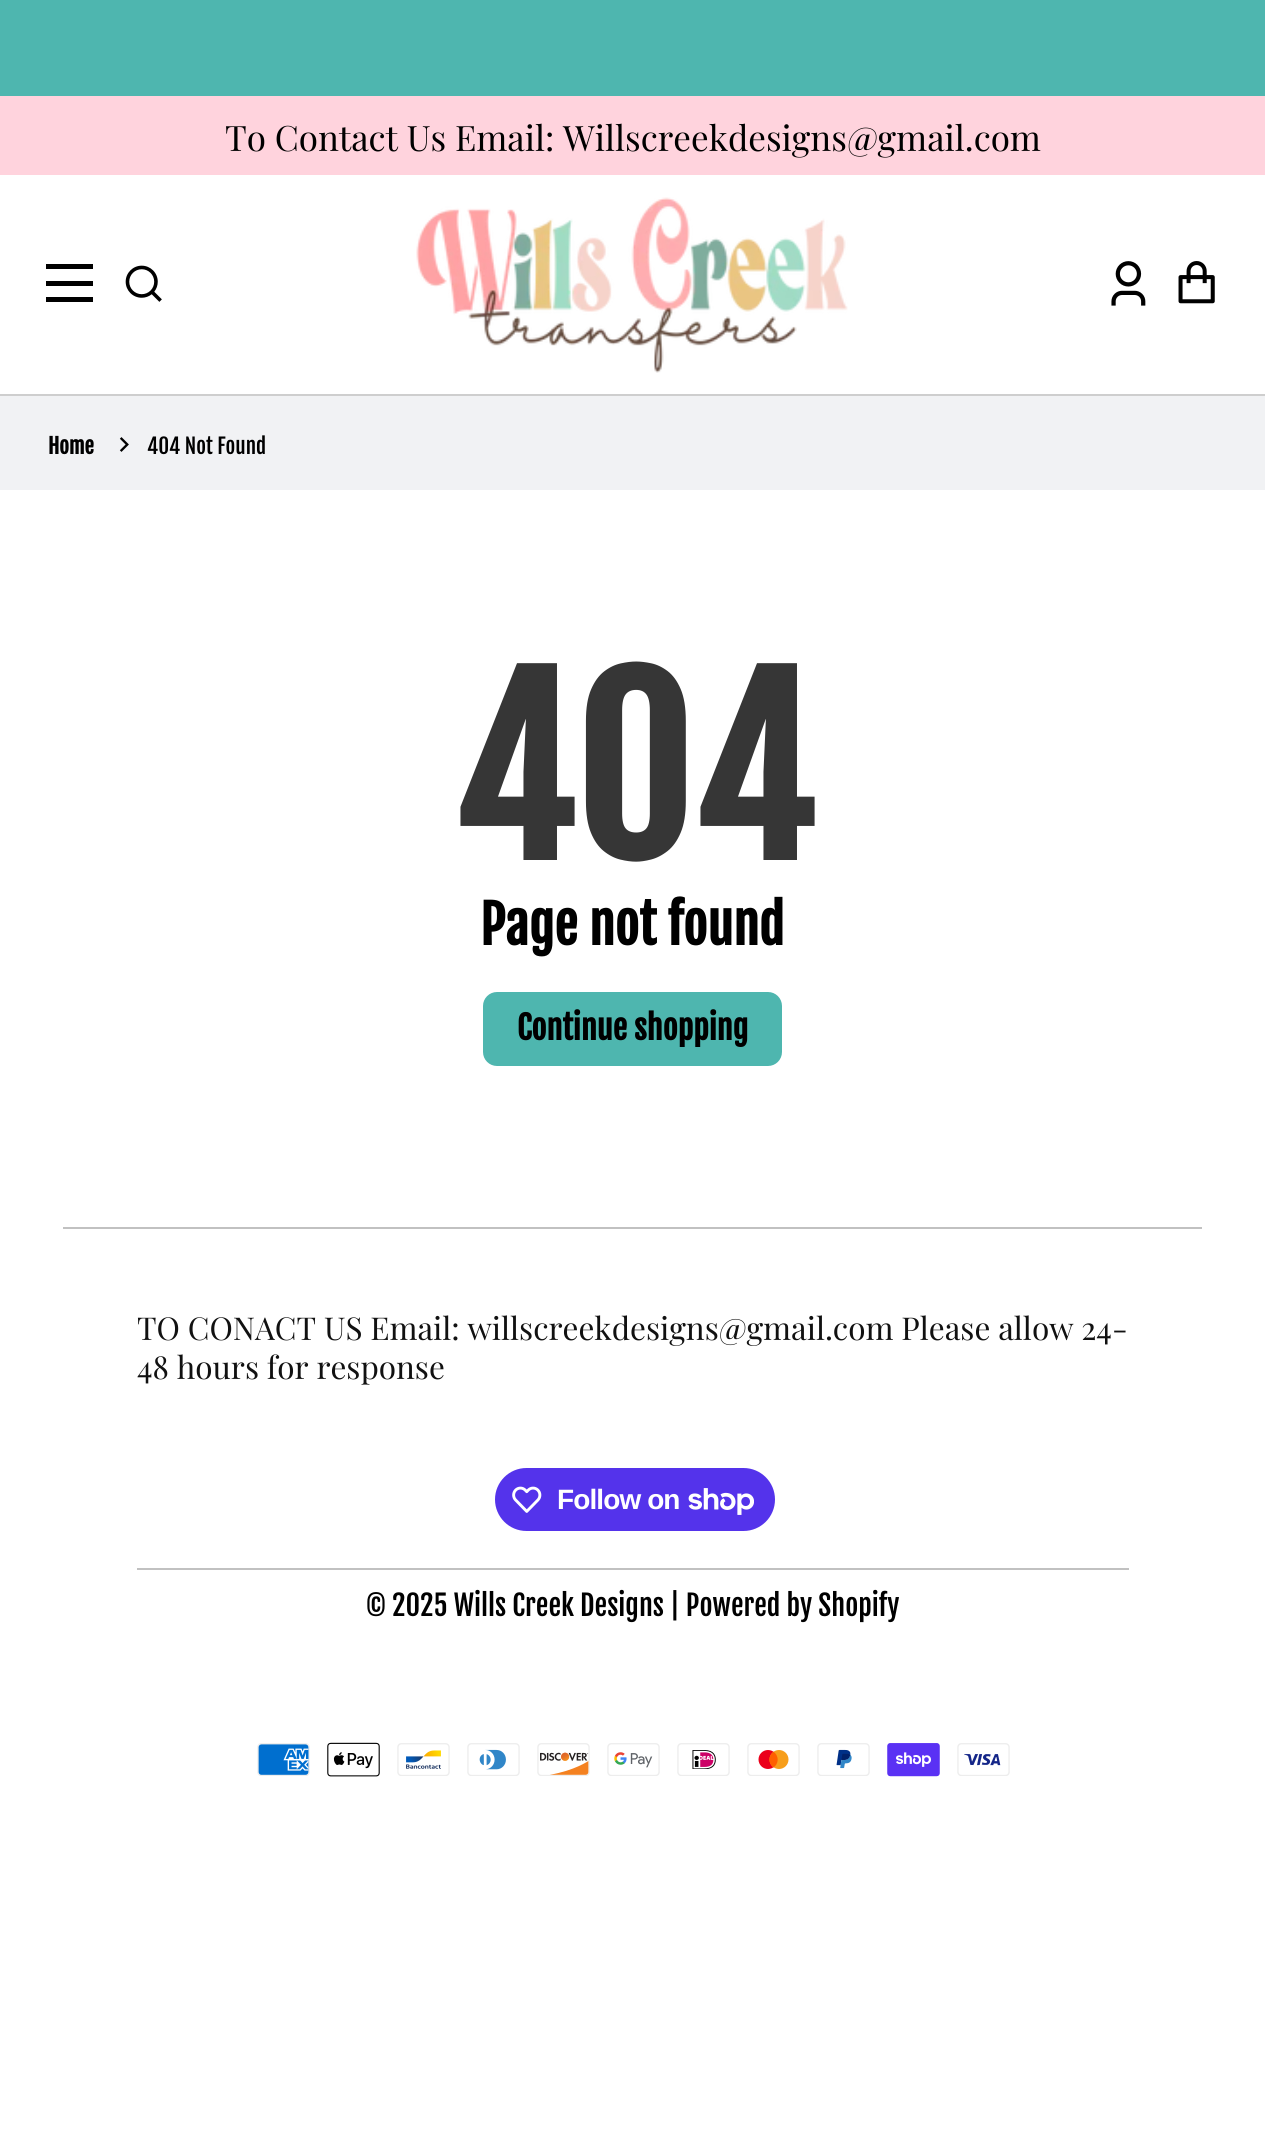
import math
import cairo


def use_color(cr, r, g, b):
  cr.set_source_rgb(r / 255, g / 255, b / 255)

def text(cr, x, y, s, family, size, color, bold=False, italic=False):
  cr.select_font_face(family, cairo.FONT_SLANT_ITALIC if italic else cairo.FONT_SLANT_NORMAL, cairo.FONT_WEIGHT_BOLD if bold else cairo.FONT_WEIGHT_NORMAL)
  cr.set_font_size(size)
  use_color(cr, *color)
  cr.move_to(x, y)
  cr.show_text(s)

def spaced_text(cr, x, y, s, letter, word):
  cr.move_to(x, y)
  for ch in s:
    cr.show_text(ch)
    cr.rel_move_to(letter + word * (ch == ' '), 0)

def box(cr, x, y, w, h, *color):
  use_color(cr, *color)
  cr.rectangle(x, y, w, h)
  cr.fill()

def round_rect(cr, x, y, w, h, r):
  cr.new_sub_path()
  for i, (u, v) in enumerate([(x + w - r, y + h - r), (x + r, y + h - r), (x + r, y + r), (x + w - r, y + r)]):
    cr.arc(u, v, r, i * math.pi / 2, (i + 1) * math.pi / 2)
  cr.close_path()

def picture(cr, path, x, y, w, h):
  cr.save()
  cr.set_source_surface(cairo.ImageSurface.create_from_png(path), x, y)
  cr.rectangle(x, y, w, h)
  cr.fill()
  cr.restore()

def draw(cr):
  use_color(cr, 255, 255, 255)
  cr.paint()
  box(cr, 0, 0, 1265, 96, 78, 182, 175)
  box(cr, 0, 96, 1265, 79, 255, 211, 221)
  box(cr, 0, 394, 1265, 2, 206, 206, 206)
  box(cr, 46, 297, 47, 5, 0, 0, 0)
  box(cr, 46, 281, 47, 5, 0, 0, 0)
  box(cr, 46, 264, 47, 5, 0, 0, 0)
  picture(cr, "img_01.png", 125, 265, 37, 37)
  picture(cr, "img_02.png", 416, 197, 432, 176)
  picture(cr, "img_03.png", 1111, 261, 35, 45)
  picture(cr, "img_04.png", 1178, 261, 37, 43)
  box(cr, 0, 396, 1265, 94, 241, 242, 244)
  picture(cr, "img_05.png", 119, 437, 10, 15)
  use_color(cr, 78, 182, 175)
  round_rect(cr, 483, 992, 299, 74, 14)
  cr.fill()
  box(cr, 63, 1227, 1139, 2, 193, 193, 193)
  use_color(cr, 84, 51, 235)
  round_rect(cr, 495, 1468, 280, 63, 31.5)
  cr.fill()
  picture(cr, "img_06.png", 512, 1486, 30, 27)
  picture(cr, "img_07.png", 688, 1488, 66, 27)
  box(cr, 137, 1568, 992, 2, 193, 193, 193)
  picture(cr, "img_08.png", 257, 1743, 53, 33)
  picture(cr, "img_09.png", 327, 1742, 53, 35)
  picture(cr, "img_10.png", 397, 1743, 53, 33)
  picture(cr, "img_11.png", 467, 1743, 53, 33)
  picture(cr, "img_12.png", 537, 1743, 53, 33)
  picture(cr, "img_13.png", 607, 1743, 53, 33)
  picture(cr, "img_14.png", 677, 1743, 53, 33)
  picture(cr, "img_15.png", 747, 1743, 53, 33)
  picture(cr, "img_16.png", 817, 1743, 53, 33)
  picture(cr, "img_17.png", 887, 1743, 53, 34)
  picture(cr, "img_18.png", 957, 1743, 53, 33)
  text(cr, 225, 151, "To Contact Us Email: Willscreekdesigns@gmail.com", "Playfair Display", 35, (0, 0, 0))
  text(cr, 48, 454, "Home", "Fjalla One", 21, (0, 0, 0), bold=True)
  text(cr, 147, 454, "404 Not Found", "Fjalla One", 21, (0, 0, 0))
  text(cr, 452, 860, "404", "Fjalla One", 228, (54, 54, 54), bold=True)
  text(cr, 480, 945, "Page not found", "Fjalla One", 52.5, (0, 0, 0), bold=True)
  text(cr, 517, 1040, "Continue shopping", "Fjalla One", 32.25, (0, 0, 0), bold=True)
  text(cr, 137, 1340, "TO CONACT US Email: willscreekdesigns@gmail.com Please allow 24-", "Playfair Display", 31.5, (17, 17, 17))
  text(cr, 137, 1379, "48 hours for response", "Playfair Display", 31.5, (17, 17, 17))
  cr.select_font_face("Liberation Sans", cairo.FONT_SLANT_NORMAL, cairo.FONT_WEIGHT_BOLD)
  cr.set_font_size(28)
  use_color(cr, 255, 255, 255)
  spaced_text(cr, 557, 1509, "Follow on", -0.9, 0)
  text(cr, 366, 1616, "© 2025 Wills Creek Designs | Powered by Shopify", "Fjalla One", 28.2, (0, 0, 0))


surface = cairo.ImageSurface(cairo.FORMAT_RGB24, 1265, 2137)
cr = cairo.Context(surface)
options = cairo.FontOptions()
options.set_hint_metrics(cairo.HINT_METRICS_OFF)
options.set_hint_style(cairo.HINT_STYLE_NONE)
cr.set_font_options(options)
cr.set_miter_limit(4)
draw(cr)
surface.write_to_png("out.png")
